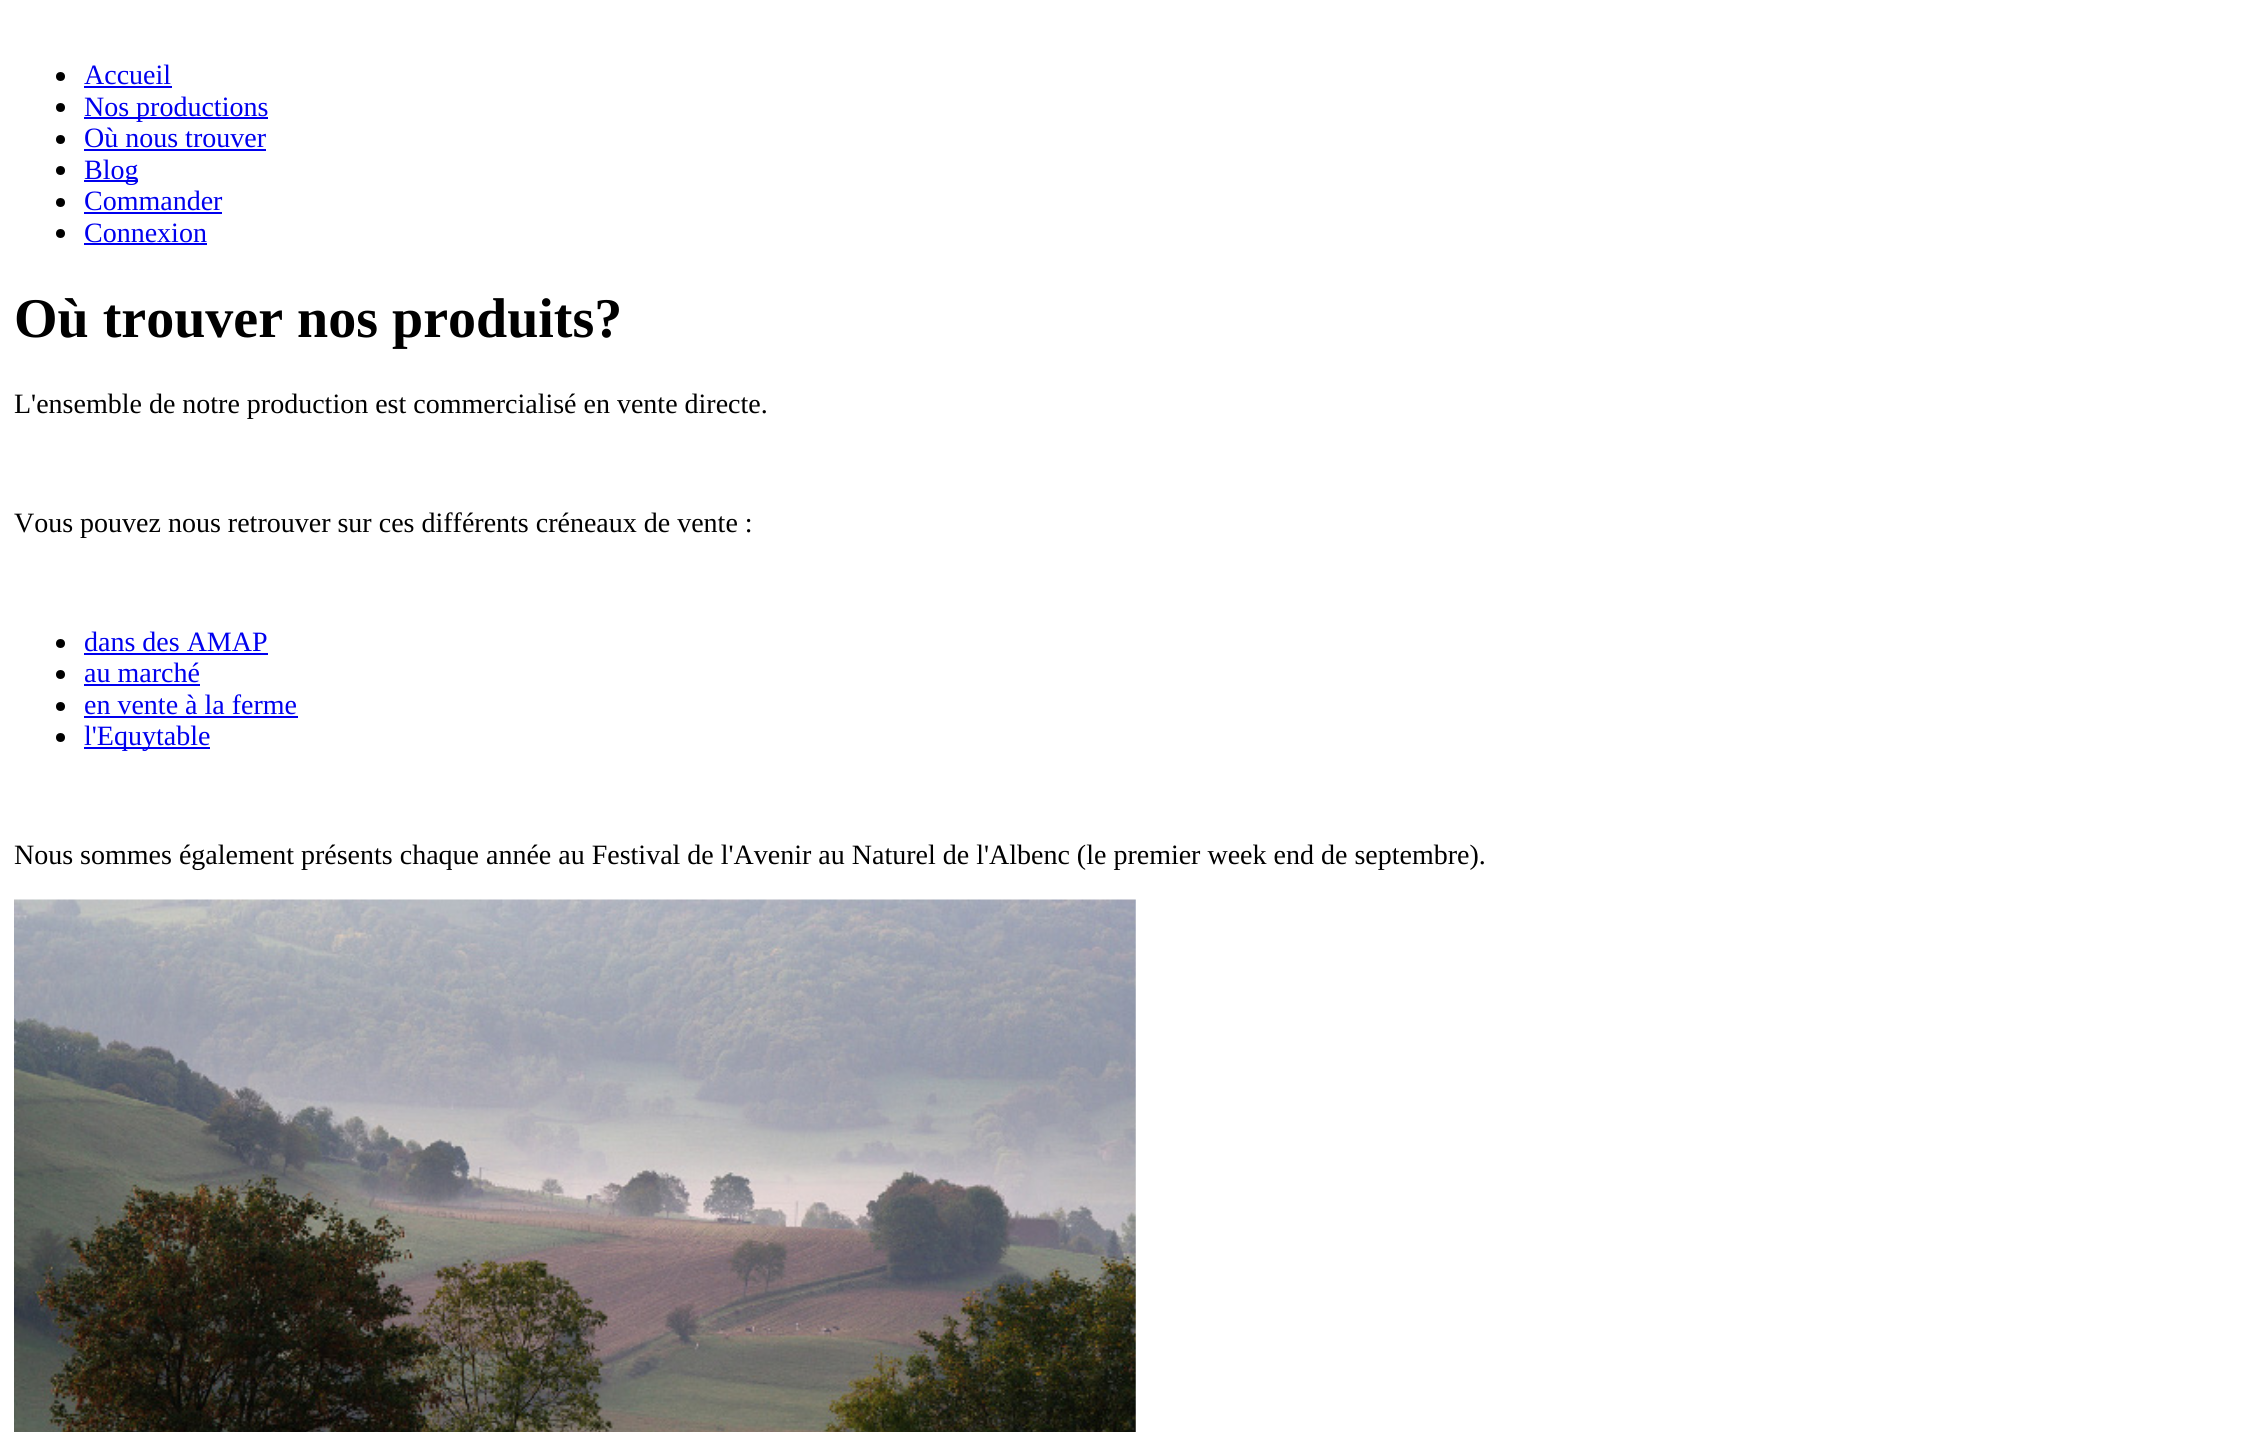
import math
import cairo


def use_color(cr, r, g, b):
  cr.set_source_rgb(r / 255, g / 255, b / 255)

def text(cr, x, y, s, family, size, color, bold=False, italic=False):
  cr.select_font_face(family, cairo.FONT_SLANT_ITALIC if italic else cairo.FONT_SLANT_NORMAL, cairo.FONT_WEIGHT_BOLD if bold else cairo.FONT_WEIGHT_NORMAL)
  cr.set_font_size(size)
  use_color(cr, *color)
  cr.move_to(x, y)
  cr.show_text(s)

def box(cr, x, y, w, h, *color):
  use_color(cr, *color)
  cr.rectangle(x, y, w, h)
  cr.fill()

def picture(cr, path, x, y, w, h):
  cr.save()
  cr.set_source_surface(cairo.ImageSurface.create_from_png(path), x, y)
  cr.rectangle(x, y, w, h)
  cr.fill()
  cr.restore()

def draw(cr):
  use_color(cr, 255, 255, 255)
  cr.paint()
  use_color(cr, 0, 0, 0)
  cr.arc(60.5, 76.5, 4.5, 0, 2 * math.pi)
  cr.fill()
  box(cr, 84, 86, 88, 2, 0, 0, 238)
  use_color(cr, 0, 0, 0)
  cr.arc(60.5, 107.5, 4.5, 0, 2 * math.pi)
  cr.fill()
  box(cr, 84, 117, 184, 2, 0, 0, 238)
  use_color(cr, 0, 0, 0)
  cr.arc(60.5, 139.5, 4.5, 0, 2 * math.pi)
  cr.fill()
  box(cr, 84, 149, 182, 2, 0, 0, 238)
  use_color(cr, 0, 0, 0)
  cr.arc(60.5, 170.5, 4.5, 0, 2 * math.pi)
  cr.fill()
  box(cr, 84, 180, 54, 2, 0, 0, 238)
  use_color(cr, 0, 0, 0)
  cr.arc(60.5, 202.5, 4.5, 0, 2 * math.pi)
  cr.fill()
  box(cr, 84, 212, 138, 2, 0, 0, 238)
  use_color(cr, 0, 0, 0)
  cr.arc(60.5, 233.5, 4.5, 0, 2 * math.pi)
  cr.fill()
  box(cr, 84, 243, 123, 2, 0, 0, 238)
  use_color(cr, 0, 0, 0)
  cr.arc(60.5, 643.5, 4.5, 0, 2 * math.pi)
  cr.fill()
  box(cr, 84, 653, 184, 2, 0, 0, 238)
  use_color(cr, 0, 0, 0)
  cr.arc(60.5, 674.5, 4.5, 0, 2 * math.pi)
  cr.fill()
  box(cr, 84, 684, 116, 2, 0, 0, 238)
  use_color(cr, 0, 0, 0)
  cr.arc(60.5, 706.5, 4.5, 0, 2 * math.pi)
  cr.fill()
  box(cr, 84, 716, 214, 2, 0, 0, 238)
  use_color(cr, 0, 0, 0)
  cr.arc(60.5, 737.5, 4.5, 0, 2 * math.pi)
  cr.fill()
  box(cr, 84, 747, 126, 2, 0, 0, 238)
  picture(cr, "img_01.png", 14, 899, 1122, 533)
  text(cr, 84, 84, "Accueil", "Liberation Serif", 28, (0, 0, 238))
  text(cr, 84, 116, "Nos productions", "Liberation Serif", 28, (0, 0, 238))
  text(cr, 84, 147, "Où nous trouver", "Liberation Serif", 28, (0, 0, 238))
  text(cr, 84, 179, "Blog", "Liberation Serif", 28, (0, 0, 238))
  text(cr, 84, 210, "Commander", "Liberation Serif", 28, (0, 0, 238))
  text(cr, 84, 242, "Connexion", "Liberation Serif", 28, (0, 0, 238))
  text(cr, 14, 337, "Où trouver nos produits?", "Liberation Serif", 56, (0, 0, 0), bold=True)
  text(cr, 14, 413, "L'ensemble de notre production est commercialisé en vente directe.", "Liberation Serif", 28, (0, 0, 0))
  text(cr, 14, 532, "Vous pouvez nous retrouver sur ces différents créneaux de vente :", "Liberation Serif", 28, (0, 0, 0))
  text(cr, 84, 651, "dans des AMAP", "Liberation Serif", 28, (0, 0, 238))
  text(cr, 84, 682, "au marché", "Liberation Serif", 28, (0, 0, 238))
  text(cr, 84, 714, "en vente à la ferme", "Liberation Serif", 28, (0, 0, 238))
  text(cr, 84, 745, "l'Equytable", "Liberation Serif", 28, (0, 0, 238))
  text(cr, 14, 864, "Nous sommes également présents chaque année au Festival de l'Avenir au Naturel de l'Albenc (le premier week end de septembre).", "Liberation Serif", 28, (0, 0, 0))


surface = cairo.ImageSurface(cairo.FORMAT_RGB24, 2266, 1432)
cr = cairo.Context(surface)
options = cairo.FontOptions()
options.set_hint_metrics(cairo.HINT_METRICS_OFF)
options.set_hint_style(cairo.HINT_STYLE_NONE)
cr.set_font_options(options)
cr.set_miter_limit(4)
draw(cr)
surface.write_to_png("out.png")
